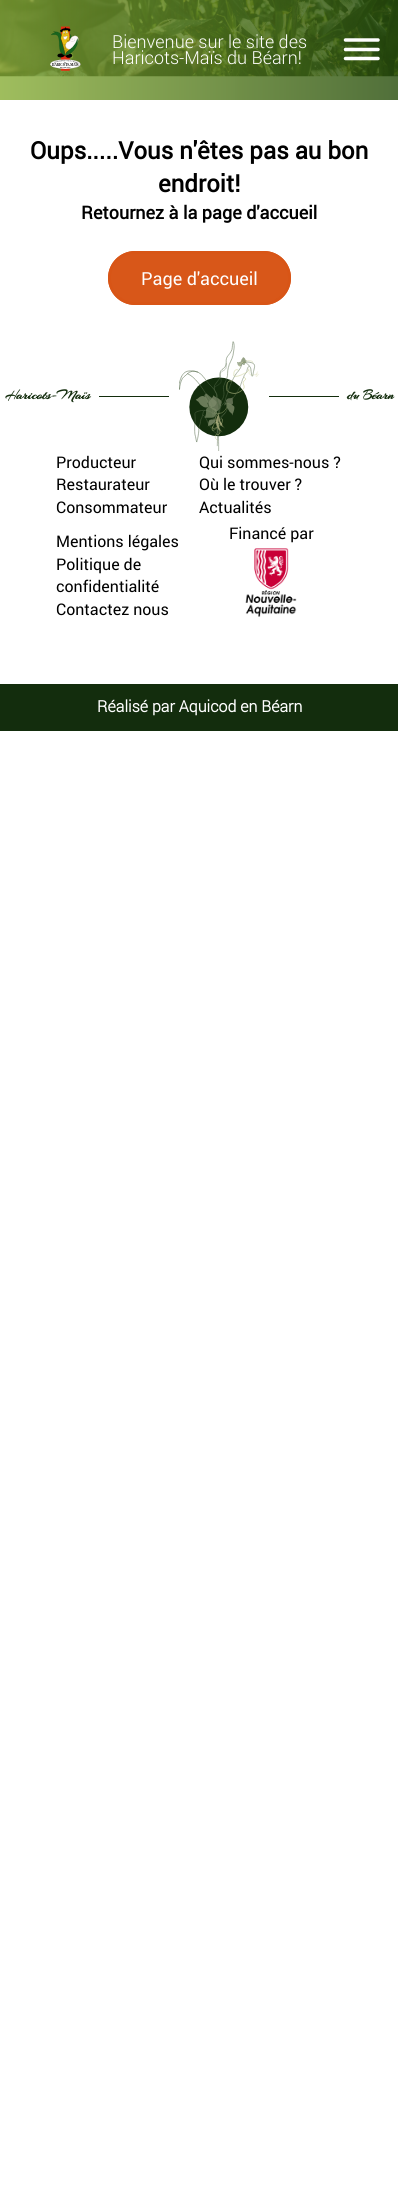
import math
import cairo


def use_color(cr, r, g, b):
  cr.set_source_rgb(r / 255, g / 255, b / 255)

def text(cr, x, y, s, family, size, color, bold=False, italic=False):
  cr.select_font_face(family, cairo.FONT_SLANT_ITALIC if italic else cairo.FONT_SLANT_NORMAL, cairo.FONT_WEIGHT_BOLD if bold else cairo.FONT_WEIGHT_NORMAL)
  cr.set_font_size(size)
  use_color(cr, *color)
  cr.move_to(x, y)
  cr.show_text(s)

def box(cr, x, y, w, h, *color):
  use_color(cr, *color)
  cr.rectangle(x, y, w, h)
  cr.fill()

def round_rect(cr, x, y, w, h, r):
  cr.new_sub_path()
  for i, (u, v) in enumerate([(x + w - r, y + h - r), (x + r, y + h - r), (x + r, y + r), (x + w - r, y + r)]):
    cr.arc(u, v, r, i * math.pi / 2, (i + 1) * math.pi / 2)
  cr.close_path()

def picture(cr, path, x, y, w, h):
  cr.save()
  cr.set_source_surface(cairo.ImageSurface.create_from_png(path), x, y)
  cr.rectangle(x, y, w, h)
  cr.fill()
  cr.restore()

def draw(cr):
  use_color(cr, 255, 255, 255)
  cr.paint()
  picture(cr, "img_01.png", 0, 0, 398, 77)
  gradient = cairo.LinearGradient(0, 50, 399, 50)
  gradient.add_color_stop_rgba(0, 0.529, 0.678, 0.208, 0.8)
  gradient.add_color_stop_rgba(1, 0.153, 0.302, 0.043, 0.81)
  cr.set_source(gradient)
  cr.rectangle(0, 0, 398, 100)
  cr.fill()
  picture(cr, "img_02.png", 50, 26, 31, 45)
  cr.new_path()
  cr.move_to(345.5, 40)
  cr.line_to(378, 40)
  cr.move_to(345.5, 49.5)
  cr.line_to(378, 49.5)
  cr.move_to(345.5, 58.5)
  cr.line_to(378, 58.5)
  use_color(cr, 255, 255, 255)
  cr.set_line_width(3.5)
  cr.set_line_cap(cairo.LINE_CAP_ROUND)
  cr.stroke()
  use_color(cr, 216, 87, 25)
  round_rect(cr, 108, 251, 183, 54, 27)
  cr.fill()
  round_rect(cr, 109.5, 252.5, 180, 51, 25.5)
  cr.set_source_rgba(0.847, 0.333, 0.09, 0.99)
  cr.set_line_width(3)
  cr.set_line_cap(cairo.LINE_CAP_BUTT)
  cr.stroke()
  box(cr, 99, 396, 70, 1, 19, 45, 13)
  picture(cr, "img_03.png", 179, 341, 80, 110)
  box(cr, 269, 396, 70, 1, 19, 45, 13)
  picture(cr, "img_04.png", 245, 548, 52, 69)
  box(cr, 0, 684, 398, 47, 19, 45, 13)
  text(cr, 112, 48, "Bienvenue sur le site des", "Roboto Light", 18, (255, 255, 255))
  text(cr, 112, 64, "Haricots-Maïs du Béarn!", "Roboto Light", 18, (255, 255, 255))
  text(cr, 30, 159, "Oups.....Vous n'êtes pas au bon", "Roboto", 24, (0, 0, 0), bold=True)
  text(cr, 158, 192, "endroit!", "Roboto", 24, (0, 0, 0), bold=True)
  text(cr, 81, 219, "Retournez à la page d'accueil", "Roboto", 18, (0, 0, 0), bold=True)
  text(cr, 141, 285, "Page d'accueil", "Roboto", 18, (255, 255, 255))
  text(cr, 5, 399, "Haricots-Maïs", "Arizonia", 14, (19, 45, 13), bold=True)
  text(cr, 347, 399, "du Béarn", "Arizonia", 14, (19, 45, 13), bold=True)
  text(cr, 56, 468, "Producteur", "Roboto", 16, (0, 0, 0))
  text(cr, 56, 490, "Restaurateur", "Roboto", 16, (0, 0, 0))
  text(cr, 56, 513, "Consommateur", "Roboto", 16, (0, 0, 0))
  text(cr, 199, 468, "Qui sommes-nous ?", "Roboto", 16, (0, 0, 0))
  text(cr, 199, 490, "Où le trouver ?", "Roboto", 16, (0, 0, 0))
  text(cr, 199, 513, "Actualités", "Roboto", 16, (0, 0, 0))
  text(cr, 56, 547, "Mentions légales", "Roboto", 16, (0, 0, 0))
  text(cr, 56, 570, "Politique de", "Roboto", 16, (0, 0, 0))
  text(cr, 56, 592, "confidentialité", "Roboto", 16, (0, 0, 0))
  text(cr, 56, 615, "Contactez nous", "Roboto", 16, (0, 0, 0))
  text(cr, 229, 539, "Financé par", "Roboto", 16, (0, 0, 0))
  text(cr, 97, 712, "Réalisé par Aquicod en Béarn", "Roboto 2", 16, (255, 255, 255), bold=True)


surface = cairo.ImageSurface(cairo.FORMAT_RGB24, 398, 2204)
cr = cairo.Context(surface)
options = cairo.FontOptions()
options.set_hint_metrics(cairo.HINT_METRICS_OFF)
options.set_hint_style(cairo.HINT_STYLE_NONE)
cr.set_font_options(options)
cr.set_miter_limit(4)
draw(cr)
surface.write_to_png("out.png")
